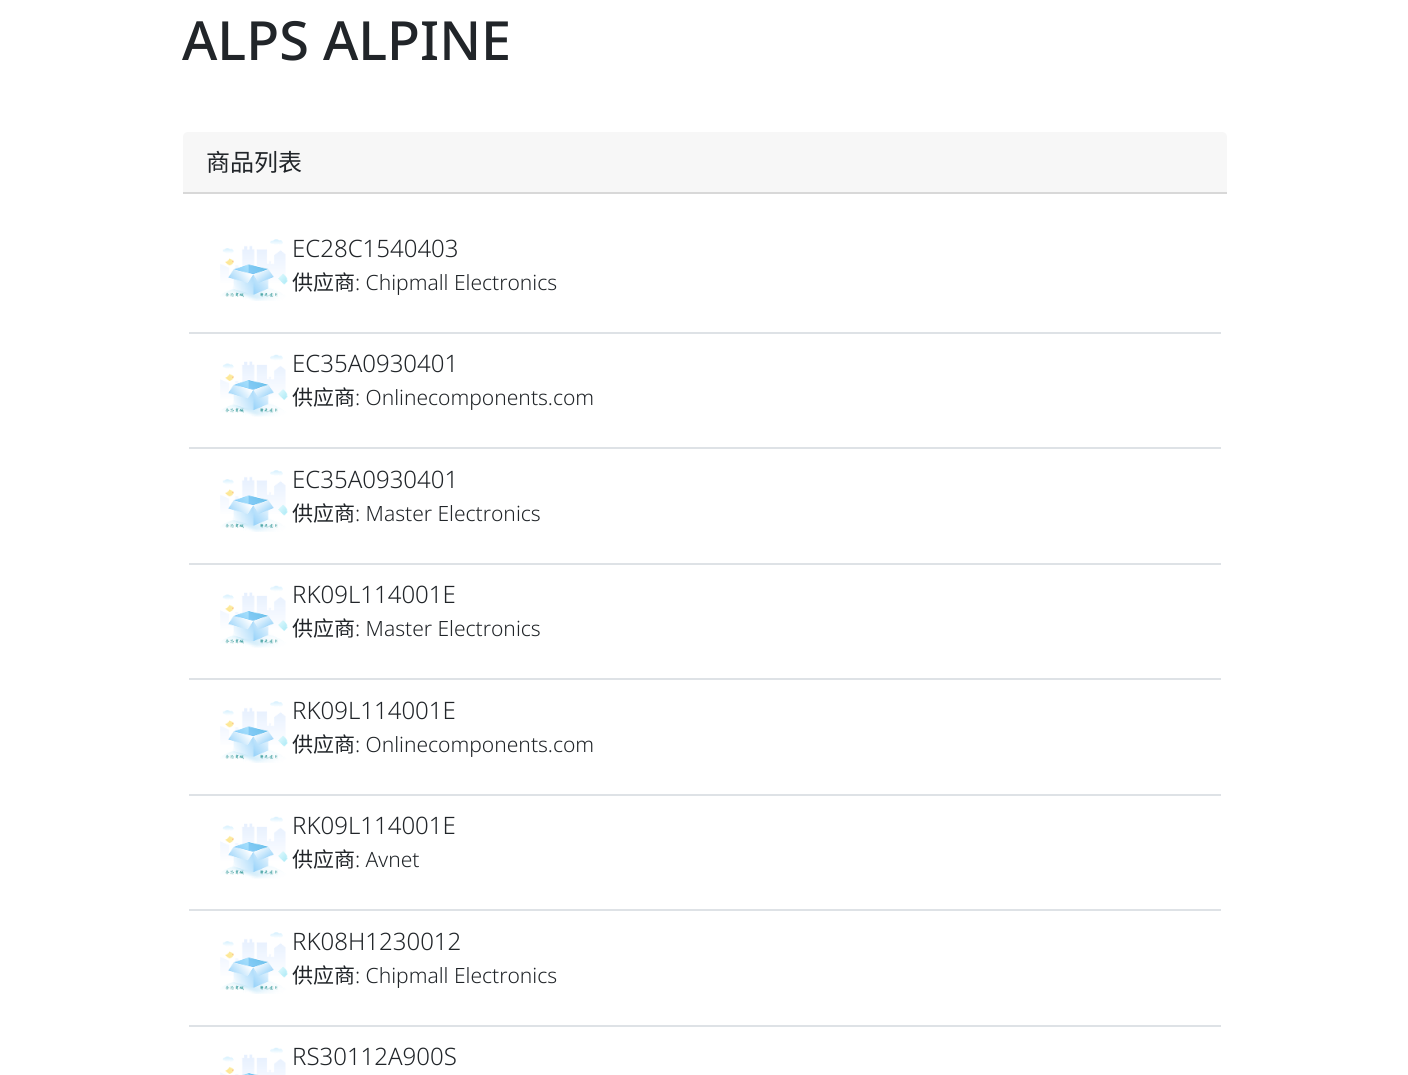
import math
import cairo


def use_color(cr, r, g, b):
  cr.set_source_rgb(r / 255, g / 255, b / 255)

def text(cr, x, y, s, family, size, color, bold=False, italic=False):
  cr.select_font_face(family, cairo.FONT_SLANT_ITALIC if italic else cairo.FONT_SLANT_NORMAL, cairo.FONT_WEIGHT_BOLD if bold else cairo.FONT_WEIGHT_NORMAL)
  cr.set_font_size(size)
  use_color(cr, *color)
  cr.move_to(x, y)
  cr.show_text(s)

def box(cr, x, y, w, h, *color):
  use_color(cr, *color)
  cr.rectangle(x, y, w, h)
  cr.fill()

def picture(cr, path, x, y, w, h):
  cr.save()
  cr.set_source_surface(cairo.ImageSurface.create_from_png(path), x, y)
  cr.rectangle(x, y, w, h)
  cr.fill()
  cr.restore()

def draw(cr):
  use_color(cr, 255, 255, 255)
  cr.paint()
  use_color(cr, 247, 247, 247)
  cr.new_path()
  cr.move_to(188, 132)
  cr.line_to(1222, 132)
  cr.curve_to(1225, 132, 1227, 134, 1227, 137)
  cr.line_to(1227, 194)
  cr.line_to(183, 194)
  cr.line_to(183, 137)
  cr.curve_to(183, 134, 185, 132, 188, 132)
  cr.close_path()
  cr.fill()
  box(cr, 183, 192, 1044, 2, 216, 216, 216)
  box(cr, 189, 332, 1032, 2, 222, 226, 230)
  picture(cr, "img_01.png", 220, 239, 68, 62)
  box(cr, 189, 447, 1032, 2, 222, 226, 230)
  picture(cr, "img_02.png", 220, 354, 68, 63)
  box(cr, 189, 563, 1032, 2, 222, 226, 230)
  picture(cr, "img_01.png", 220, 470, 68, 62)
  box(cr, 189, 678, 1032, 2, 222, 226, 230)
  picture(cr, "img_03.png", 220, 585, 68, 63)
  box(cr, 189, 794, 1032, 2, 222, 226, 230)
  picture(cr, "img_04.png", 220, 701, 68, 62)
  box(cr, 189, 909, 1032, 2, 222, 226, 230)
  picture(cr, "img_05.png", 220, 816, 68, 63)
  box(cr, 189, 1025, 1032, 2, 222, 226, 230)
  picture(cr, "img_06.png", 220, 932, 68, 62)
  picture(cr, "img_07.png", 220, 1047, 66, 28)
  text(cr, 182, 60, "ALPS ALPINE", "Noto Sans Medium", 54, (33, 37, 41))
  text(cr, 206, 171, "商品列表", "Noto Sans CJK SC", 24, (33, 37, 41))
  text(cr, 292, 257, "EC28C1540403", "Noto Sans Light", 24, (33, 37, 41))
  text(cr, 292, 290, "供应商", "Noto Sans CJK SC", 21, (33, 37, 41))
  text(cr, 355, 290, ": Chipmall Electronics", "Noto Sans Light", 21, (33, 37, 41))
  text(cr, 292, 372, "EC35A0930401", "Noto Sans Light", 24, (33, 37, 41))
  text(cr, 292, 405, "供应商", "Noto Sans CJK SC", 21, (33, 37, 41))
  text(cr, 355, 405, ": Onlinecomponents.com", "Noto Sans Light", 21, (33, 37, 41))
  text(cr, 292, 488, "EC35A0930401", "Noto Sans Light", 24, (33, 37, 41))
  text(cr, 292, 521, "供应商", "Noto Sans CJK SC", 21, (33, 37, 41))
  text(cr, 355, 521, ": Master Electronics", "Noto Sans Light", 21, (33, 37, 41))
  text(cr, 292, 603, "RK09L114001E", "Noto Sans Light", 24, (33, 37, 41))
  text(cr, 292, 636, "供应商", "Noto Sans CJK SC", 21, (33, 37, 41))
  text(cr, 355, 636, ": Master Electronics", "Noto Sans Light", 21, (33, 37, 41))
  text(cr, 292, 719, "RK09L114001E", "Noto Sans Light", 24, (33, 37, 41))
  text(cr, 292, 752, "供应商", "Noto Sans CJK SC", 21, (33, 37, 41))
  text(cr, 355, 752, ": Onlinecomponents.com", "Noto Sans Light", 21, (33, 37, 41))
  text(cr, 292, 834, "RK09L114001E", "Noto Sans Light", 24, (33, 37, 41))
  text(cr, 292, 867, "供应商", "Noto Sans CJK SC", 21, (33, 37, 41))
  text(cr, 355, 867, ": Avnet", "Noto Sans Light", 21, (33, 37, 41))
  text(cr, 292, 950, "RK08H1230012", "Noto Sans Light", 24, (33, 37, 41))
  text(cr, 292, 983, "供应商", "Noto Sans CJK SC", 21, (33, 37, 41))
  text(cr, 355, 983, ": Chipmall Electronics", "Noto Sans Light", 21, (33, 37, 41))
  text(cr, 292, 1065, "RS30112A900S", "Noto Sans Light", 24, (33, 37, 41))


surface = cairo.ImageSurface(cairo.FORMAT_RGB24, 1408, 1075)
cr = cairo.Context(surface)
options = cairo.FontOptions()
options.set_hint_metrics(cairo.HINT_METRICS_OFF)
options.set_hint_style(cairo.HINT_STYLE_NONE)
cr.set_font_options(options)
cr.set_miter_limit(4)
draw(cr)
surface.write_to_png("out.png")
